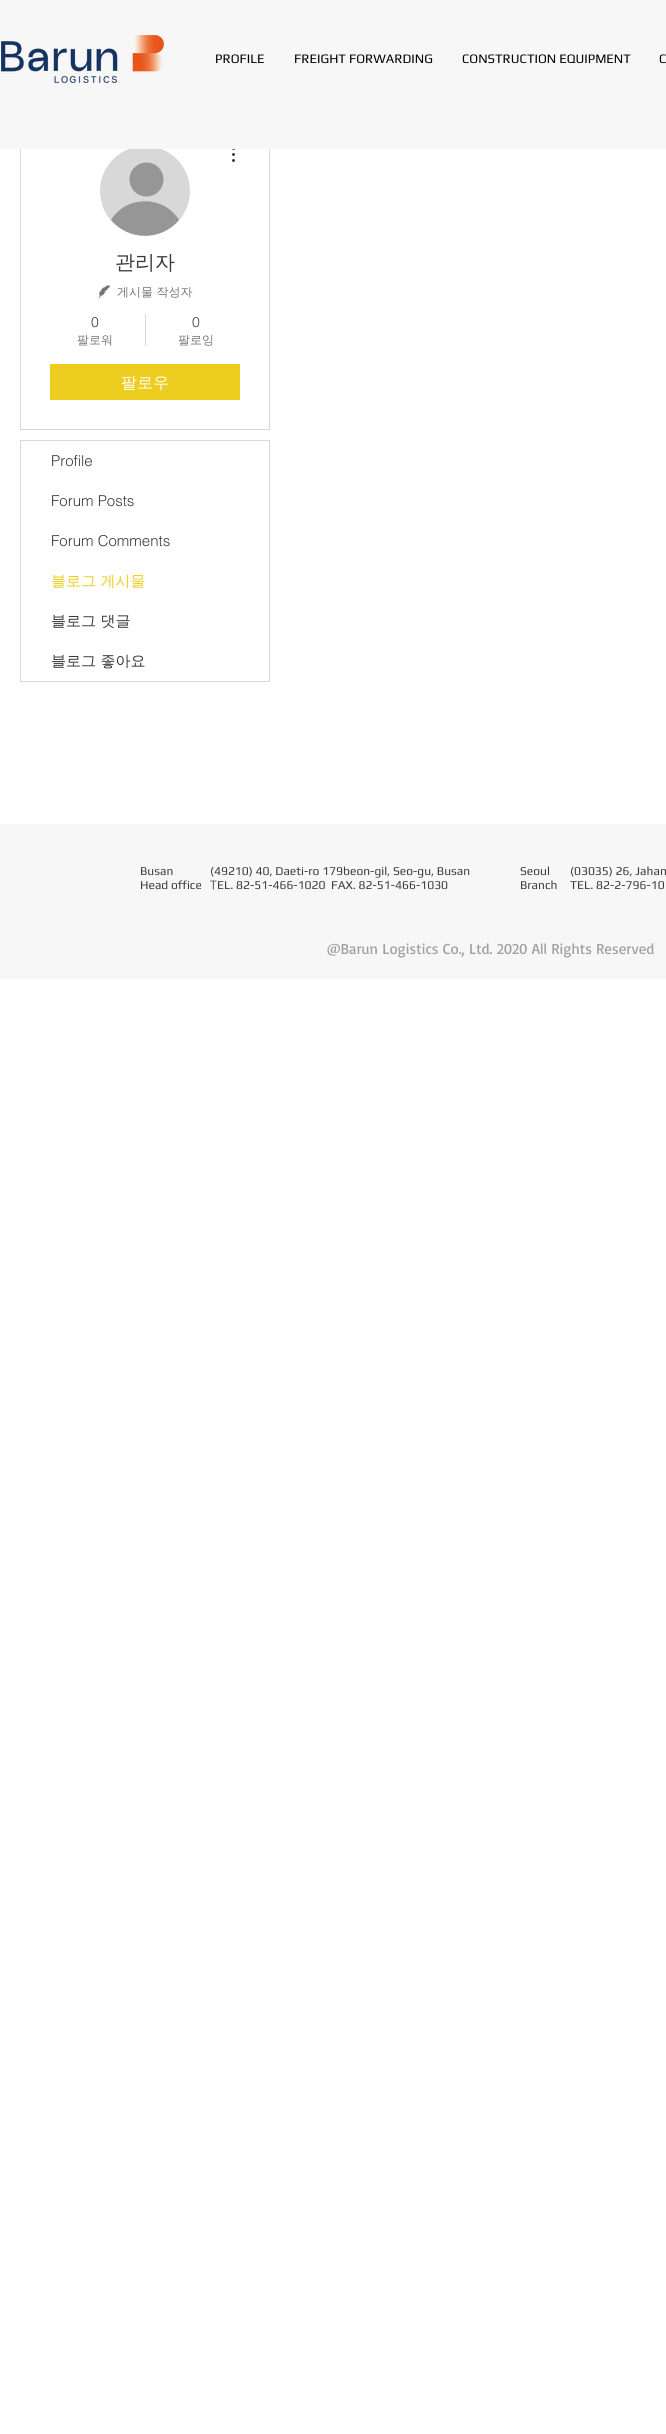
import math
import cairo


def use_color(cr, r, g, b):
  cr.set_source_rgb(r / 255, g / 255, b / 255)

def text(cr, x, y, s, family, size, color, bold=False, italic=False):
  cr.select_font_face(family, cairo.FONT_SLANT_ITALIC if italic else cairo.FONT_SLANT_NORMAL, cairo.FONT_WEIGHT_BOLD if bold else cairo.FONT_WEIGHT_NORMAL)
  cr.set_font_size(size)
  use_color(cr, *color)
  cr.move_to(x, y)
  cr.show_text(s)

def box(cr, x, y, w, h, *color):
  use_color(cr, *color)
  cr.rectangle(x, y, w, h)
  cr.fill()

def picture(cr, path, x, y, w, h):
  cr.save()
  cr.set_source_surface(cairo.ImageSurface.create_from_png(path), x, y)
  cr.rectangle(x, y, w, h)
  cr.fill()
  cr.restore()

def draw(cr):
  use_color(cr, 255, 255, 255)
  cr.paint()
  cr.rectangle(20.5, 116.5, 249, 313)
  use_color(cr, 216, 216, 216)
  cr.set_line_width(1)
  cr.stroke()
  cr.arc(145, 191, 45, 0, 2 * math.pi)
  cr.fill()
  box(cr, 0, 0, 666, 149, 247, 247, 247)
  picture(cr, "img_01.png", 1, 35, 163, 48)
  use_color(cr, 150, 150, 150)
  cr.arc(146.5, 179.5, 17, 0, 2 * math.pi)
  cr.fill()
  cr.new_path()
  cr.move_to(179, 220)
  cr.curve_to(161, 241, 129, 241, 111, 220)
  cr.curve_to(126, 195, 164, 195, 179, 220)
  cr.close_path()
  cr.fill()
  picture(cr, "img_02.png", 232, 149, 3, 13)
  picture(cr, "img_03.png", 98, 285, 12, 14)
  box(cr, 145, 314, 1, 32, 216, 216, 216)
  box(cr, 50, 364, 190, 36, 237, 205, 31)
  cr.rectangle(20.5, 440.5, 249, 241)
  use_color(cr, 216, 216, 216)
  cr.stroke()
  box(cr, 0, 824, 666, 155, 247, 247, 247)
  text(cr, 215, 63, "PROFILE", "Play", 13, (0, 0, 0))
  text(cr, 294, 63, "FREIGHT FORWARDING", "Play", 13, (0, 0, 0))
  text(cr, 462, 63, "CONSTRUCTION EQUIPMENT", "Play", 13, (0, 0, 0))
  text(cr, 659, 63, "C", "Play", 13, (0, 0, 0))
  text(cr, 115, 269, "관리자", "WenQuanYi Zen Hei Medium", 20, (59, 58, 58))
  text(cr, 117, 296, "게시물 작성자", "WenQuanYi Zen Hei Medium", 12, (118, 117, 117))
  text(cr, 91, 327, "0", "helvetica Light", 14, (59, 58, 58))
  text(cr, 77, 344, "팔로워", "WenQuanYi Zen Hei Medium", 12, (118, 117, 117))
  text(cr, 192, 327, "0", "helvetica Light", 14, (59, 58, 58))
  text(cr, 178, 344, "팔로잉", "WenQuanYi Zen Hei Medium", 12, (118, 117, 117))
  text(cr, 121, 388, "팔로우", "WenQuanYi Zen Hei Medium", 16, (255, 255, 255))
  text(cr, 51, 466, "Profile", "helvetica Light", 15, (59, 58, 58))
  text(cr, 51, 506, "Forum Posts", "helvetica Light", 15, (59, 58, 58))
  text(cr, 51, 546, "Forum Comments", "helvetica Light", 15, (59, 58, 58))
  text(cr, 51, 586, "블로그 게시물", "WenQuanYi Zen Hei Medium", 15, (237, 205, 31))
  text(cr, 51, 626, "블로그 댓글", "WenQuanYi Zen Hei Medium", 15, (59, 58, 58))
  text(cr, 51, 666, "블로그 좋아요", "WenQuanYi Zen Hei Medium", 15, (59, 58, 58))
  text(cr, 140, 875, "Busan", "Play", 12, (59, 58, 58))
  text(cr, 140, 889, "Head office", "Play", 12, (59, 58, 58))
  text(cr, 210, 875, "(49210) 40, Daeti-ro 179beon-gil, Seo-gu, Busan", "Play", 12, (59, 58, 58))
  text(cr, 210, 889, "T", "NanumGothic", 12, (59, 58, 58))
  text(cr, 217, 889, "EL. 82-51-466-1020  FAX. 82-51-466-1030", "Play", 12, (59, 58, 58))
  text(cr, 520, 875, "Seoul", "Play", 12, (59, 58, 58))
  text(cr, 520, 889, "Branch", "Play", 12, (59, 58, 58))
  text(cr, 570, 875, "(03035) 26, Jaham", "Play", 12, (59, 58, 58))
  text(cr, 570, 889, "TEL. 82-2-796-10", "Play", 12, (59, 58, 58))
  text(cr, 327, 954, "@Barun Logistics Co., Ltd. 2020 All Rights Reserved", "Basic", 15, (160, 160, 159))


surface = cairo.ImageSurface(cairo.FORMAT_RGB24, 666, 2434)
cr = cairo.Context(surface)
options = cairo.FontOptions()
options.set_hint_metrics(cairo.HINT_METRICS_OFF)
options.set_hint_style(cairo.HINT_STYLE_NONE)
cr.set_font_options(options)
cr.set_miter_limit(4)
draw(cr)
surface.write_to_png("out.png")
